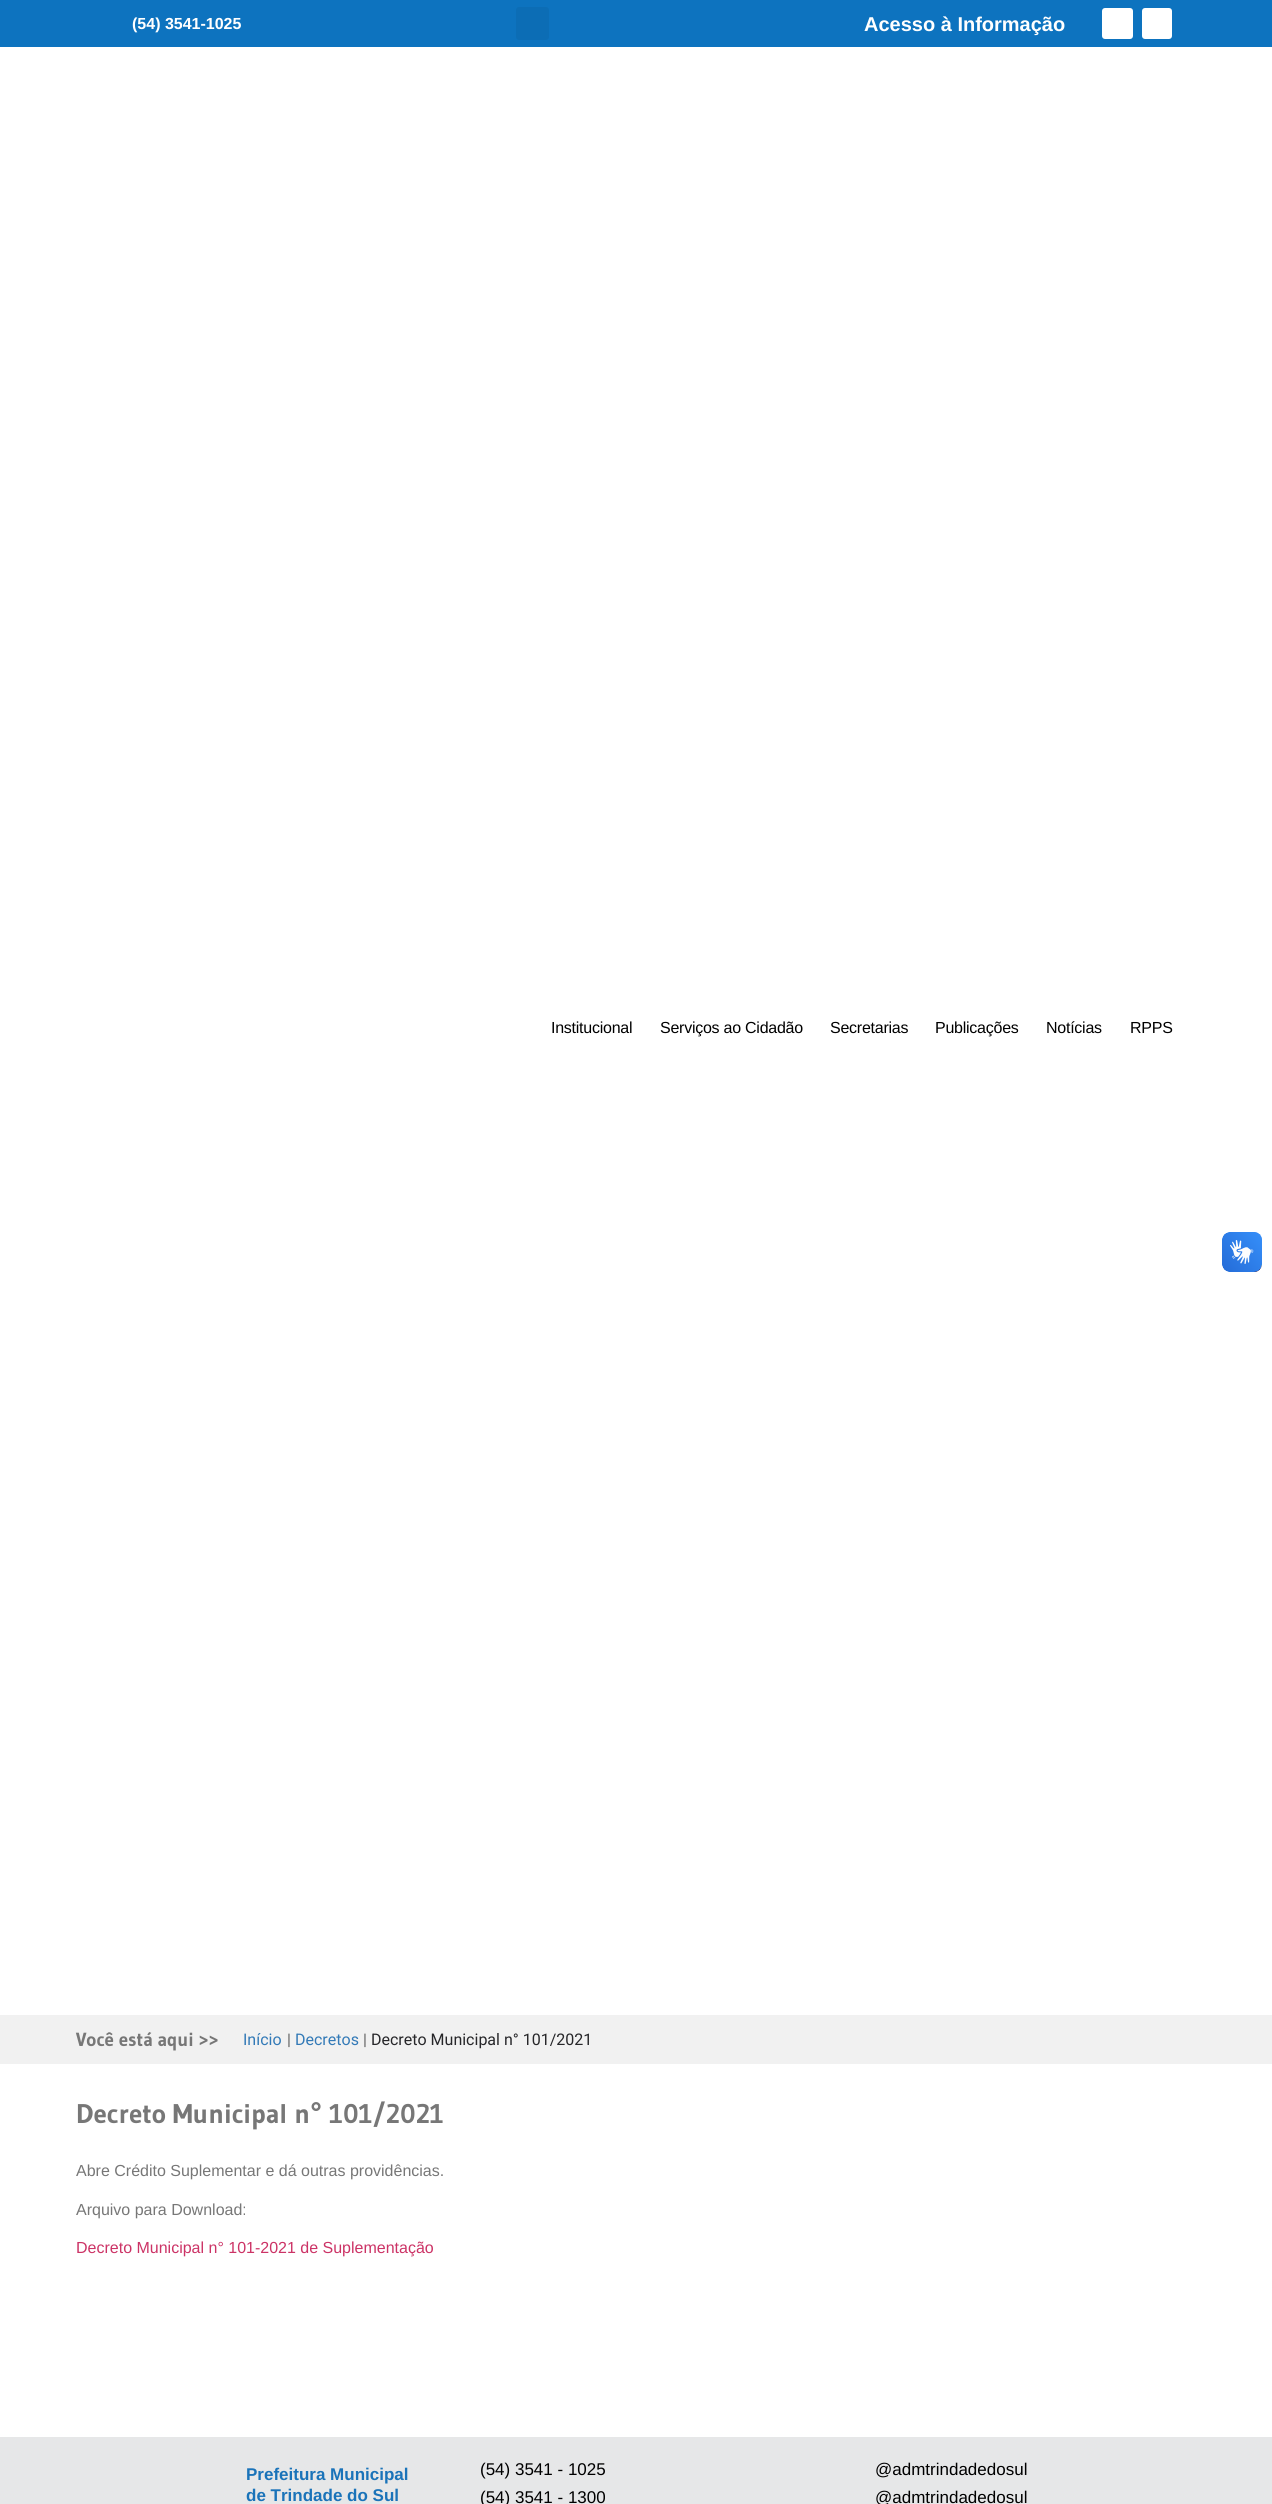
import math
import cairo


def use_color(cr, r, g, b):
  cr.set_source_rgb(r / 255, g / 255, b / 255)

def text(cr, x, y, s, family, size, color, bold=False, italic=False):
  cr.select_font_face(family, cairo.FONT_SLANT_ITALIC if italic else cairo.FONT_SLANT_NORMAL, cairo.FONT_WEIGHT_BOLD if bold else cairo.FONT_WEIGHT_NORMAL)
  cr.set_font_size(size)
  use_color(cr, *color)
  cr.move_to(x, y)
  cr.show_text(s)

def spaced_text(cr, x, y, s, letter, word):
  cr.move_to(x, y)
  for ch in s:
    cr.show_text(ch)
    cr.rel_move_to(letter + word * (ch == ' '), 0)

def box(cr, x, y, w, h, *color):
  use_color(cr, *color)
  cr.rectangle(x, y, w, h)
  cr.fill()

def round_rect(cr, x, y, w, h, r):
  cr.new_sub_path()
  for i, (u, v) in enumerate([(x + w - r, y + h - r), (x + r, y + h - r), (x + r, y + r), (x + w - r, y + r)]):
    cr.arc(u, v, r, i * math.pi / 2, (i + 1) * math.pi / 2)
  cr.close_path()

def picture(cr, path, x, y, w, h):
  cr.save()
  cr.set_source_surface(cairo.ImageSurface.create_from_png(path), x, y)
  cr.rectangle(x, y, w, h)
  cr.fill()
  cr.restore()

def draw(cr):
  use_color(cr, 255, 255, 255)
  cr.paint()
  box(cr, 0, 0, 1272, 47, 13, 115, 191)
  use_color(cr, 12, 109, 181)
  round_rect(cr, 516, 7, 33, 33, 3)
  cr.fill()
  use_color(cr, 255, 255, 255)
  round_rect(cr, 1102, 8, 31, 31, 3)
  cr.fill()
  round_rect(cr, 1142, 8, 30, 31, 3)
  cr.fill()
  picture(cr, "img_01.png", 1222, 1232, 40, 40)
  picture(cr, "img_02.png", 1222, 1232, 40, 40)
  box(cr, 0, 2015, 1272, 49, 241, 241, 241)
  box(cr, 0, 2437, 1272, 67, 230, 231, 232)
  text(cr, 132, 29, "(54) 3541-1025", "Liberation Sans", 16, (255, 255, 255), bold=True)
  text(cr, 864, 31, "Acesso à Informação", "Liberation Sans", 20, (255, 255, 255), bold=True)
  cr.select_font_face("Liberation Sans")
  cr.set_font_size(16)
  use_color(cr, 0, 0, 0)
  spaced_text(cr, 551, 1033, "Institucional", -0.25, 0)
  spaced_text(cr, 660, 1033, "Serviços ao Cidadão", -0.25, 0)
  spaced_text(cr, 830, 1033, "Secretarias", -0.25, 0)
  spaced_text(cr, 935, 1033, "Publicações", -0.25, 0)
  spaced_text(cr, 1046, 1033, "Notícias", -0.25, 0)
  spaced_text(cr, 1130, 1033, "RPPS", -0.25, 0)
  text(cr, 76, 2046, "Você está aqui >>", "Gudea", 19, (119, 119, 119), bold=True)
  text(cr, 243, 2045, "Início", "Roboto", 16, (51, 122, 183))
  text(cr, 287, 2045, "|", "Roboto", 16, (96, 96, 96))
  text(cr, 295, 2045, "Decretos", "Roboto", 16, (51, 122, 183))
  text(cr, 363, 2045, "|", "Roboto", 16, (96, 96, 96))
  text(cr, 371, 2045, "Decreto Municipal n° 101/2021", "Roboto", 16, (39, 39, 42))
  text(cr, 76, 2123, "Decreto Municipal n° 101/2021", "Gudea", 27, (119, 119, 119), bold=True)
  text(cr, 76, 2176, "Abre Crédito Suplementar e dá outras providências.", "Liberation Sans", 16, (119, 119, 119))
  text(cr, 76, 2215, "Arquivo para Download:", "Liberation Sans", 16, (119, 119, 119))
  text(cr, 76, 2253, "Decreto Municipal n° 101-2021 de Suplementação", "Liberation Sans", 16, (204, 51, 102))
  text(cr, 246, 2480, "Prefeitura Municipal", "Liberation Sans", 17, (26, 115, 185), bold=True)
  text(cr, 246, 2501, "de Trindade do Sul", "Liberation Sans", 17, (26, 115, 185), bold=True)
  text(cr, 480, 2475, "(54) 3541 - 1025", "Liberation Sans", 17, (0, 0, 0))
  text(cr, 480, 2503, "(54) 3541 - 1300", "Liberation Sans", 17, (0, 0, 0))
  text(cr, 875, 2475, "@admtrindadedosul", "Liberation Sans", 17, (0, 0, 0))
  text(cr, 875, 2503, "@admtrindadedosul", "Liberation Sans", 17, (0, 0, 0))


surface = cairo.ImageSurface(cairo.FORMAT_RGB24, 1272, 2504)
cr = cairo.Context(surface)
options = cairo.FontOptions()
options.set_hint_metrics(cairo.HINT_METRICS_OFF)
options.set_hint_style(cairo.HINT_STYLE_NONE)
cr.set_font_options(options)
cr.set_miter_limit(4)
draw(cr)
surface.write_to_png("out.png")
